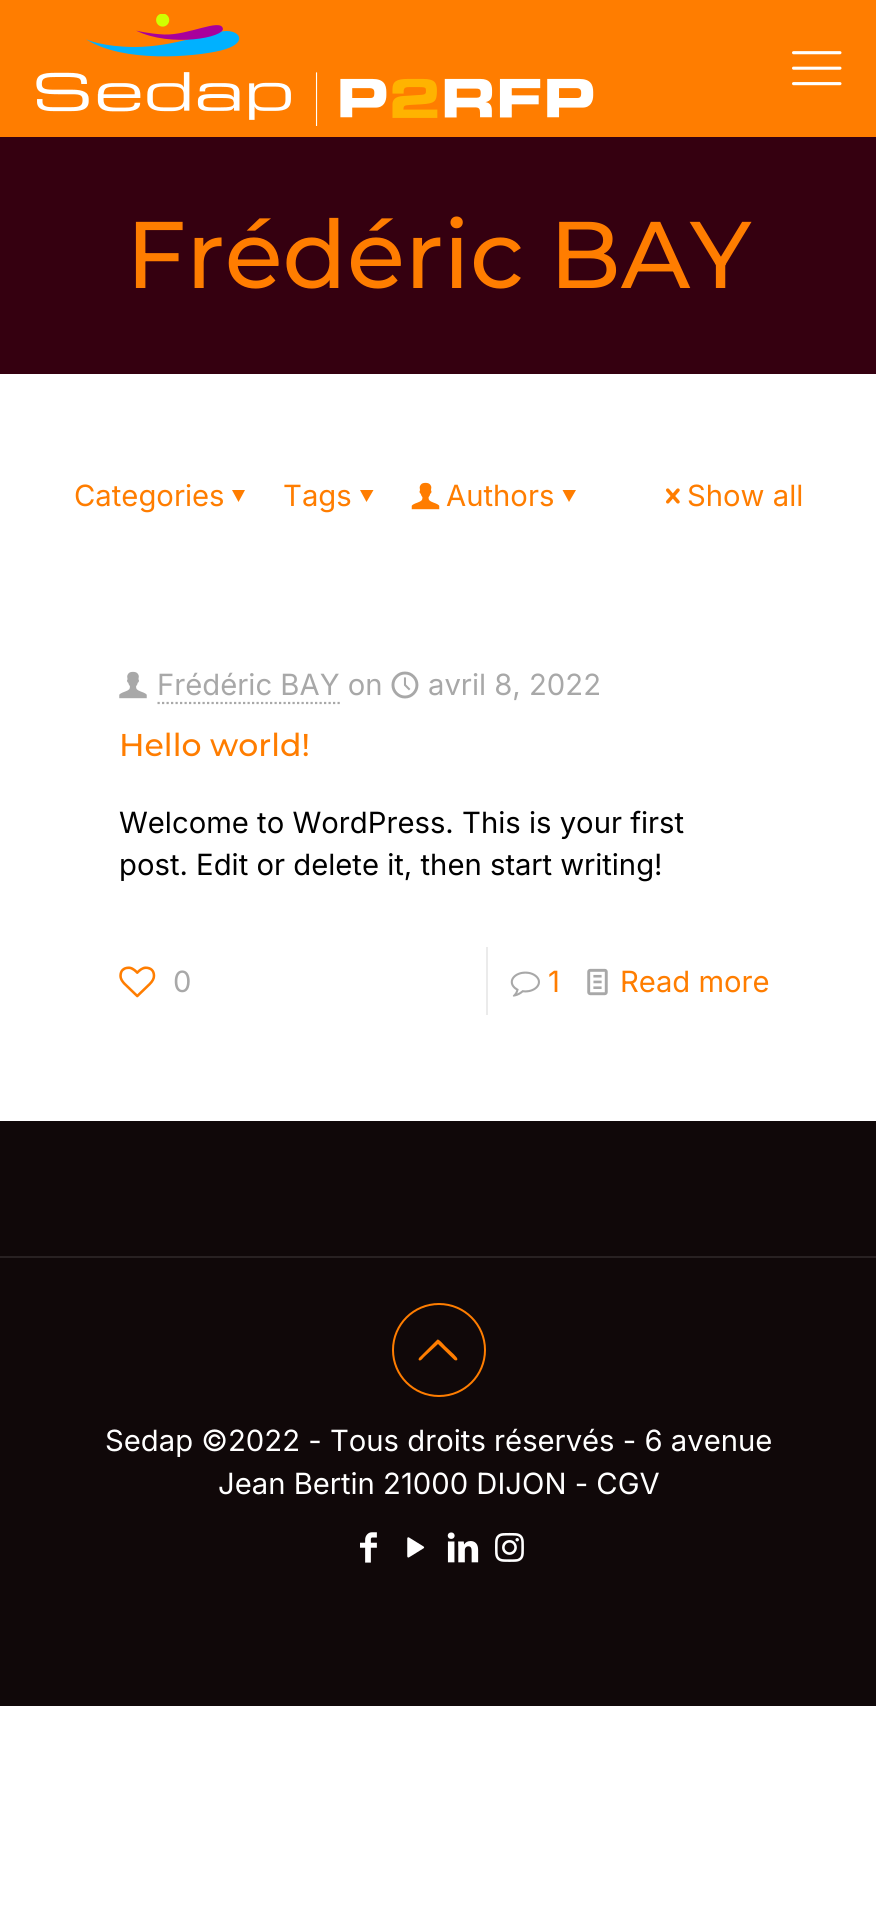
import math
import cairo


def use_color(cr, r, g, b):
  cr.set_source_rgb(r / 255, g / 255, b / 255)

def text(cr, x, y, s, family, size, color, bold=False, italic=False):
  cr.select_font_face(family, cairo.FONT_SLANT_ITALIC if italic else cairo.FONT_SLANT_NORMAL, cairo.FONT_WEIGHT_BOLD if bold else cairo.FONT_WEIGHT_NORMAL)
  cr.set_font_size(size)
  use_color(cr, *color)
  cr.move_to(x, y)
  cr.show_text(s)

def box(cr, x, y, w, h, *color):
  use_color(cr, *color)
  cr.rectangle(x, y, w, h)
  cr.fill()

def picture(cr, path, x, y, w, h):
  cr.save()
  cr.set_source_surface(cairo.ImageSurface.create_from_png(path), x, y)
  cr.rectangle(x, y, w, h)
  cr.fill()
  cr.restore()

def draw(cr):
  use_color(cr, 255, 255, 255)
  cr.paint()
  box(cr, 0, 0, 876, 137, 255, 125, 0)
  picture(cr, "img_01.png", 36, 14, 558, 112)
  picture(cr, "img_02.png", 792, 51, 50, 35)
  box(cr, 0, 137, 876, 237, 53, 0, 16)
  use_color(cr, 255, 125, 0)
  cr.new_path()
  cr.move_to(245, 490)
  cr.line_to(238.5, 502)
  cr.line_to(232, 490)
  cr.close_path()
  cr.fill()
  cr.new_path()
  cr.move_to(373.5, 490)
  cr.line_to(366.5, 502)
  cr.line_to(360, 490)
  cr.close_path()
  cr.fill()
  picture(cr, "img_03.png", 411, 482, 29, 28)
  cr.new_path()
  cr.move_to(576, 490)
  cr.line_to(569, 502)
  cr.line_to(562.5, 490)
  cr.close_path()
  cr.fill()
  picture(cr, "img_04.png", 666, 488, 14, 16)
  picture(cr, "img_05.png", 119, 671, 28, 28)
  cr.new_path()
  cr.move_to(157.5, 703)
  cr.line_to(340, 703)
  use_color(cr, 168, 168, 168)
  cr.set_line_width(2.2)
  cr.set_dash([2.25, 2.25])
  cr.stroke()
  picture(cr, "img_06.png", 391, 671, 28, 28)
  picture(cr, "img_07.png", 119, 966, 37, 32)
  box(cr, 486, 947, 2, 68, 235, 235, 235)
  picture(cr, "img_08.png", 510, 971, 30, 26)
  picture(cr, "img_09.png", 587, 968, 21, 28)
  box(cr, 0, 1121, 876, 585, 16, 8, 9)
  box(cr, 0, 1256, 876, 2, 40, 33, 34)
  cr.arc(439, 1350, 46, 0, 2 * math.pi)
  use_color(cr, 255, 125, 0)
  cr.set_line_width(2)
  cr.set_dash([])
  cr.stroke()
  cr.new_path()
  cr.move_to(454.5, 1360)
  cr.line_to(438, 1344)
  cr.line_to(424, 1357)
  cr.curve_to(423, 1358, 420, 1362.5, 418.5, 1359.5)
  cr.line_to(419, 1358)
  cr.line_to(437.5, 1339.5)
  cr.curve_to(439, 1339, 444, 1345, 445, 1346)
  cr.line_to(454, 1354.5)
  cr.curve_to(454, 1355, 460, 1359.5, 456, 1360.5)
  cr.close_path()
  cr.fill()
  picture(cr, "img_10.png", 360, 1532, 17, 31)
  picture(cr, "img_11.png", 407, 1537, 18, 21)
  picture(cr, "img_12.png", 447, 1532, 32, 31)
  picture(cr, "img_13.png", 495, 1532, 29, 30)
  text(cr, 126, 288, "Frédéric BAY", "Montserrat Thin", 94.5, (255, 125, 0))
  text(cr, 74, 506, "Categories", "Inter", 29.25, (255, 125, 0))
  text(cr, 283, 506, "Tags", "Inter", 29.25, (255, 125, 0))
  text(cr, 446, 506, "Authors", "Inter", 29.25, (255, 125, 0))
  text(cr, 687, 506, "Show all", "Inter", 29.25, (255, 125, 0))
  text(cr, 157, 695, "Frédéric BAY on", "Inter", 29.25, (168, 168, 168))
  text(cr, 428, 695, "avril 8, 2022", "Inter", 29.25, (168, 168, 168))
  text(cr, 119, 756, "Hello world!", "Montserrat Thin", 31.5, (255, 125, 0))
  text(cr, 119, 833, "Welcome to WordPress. This is your first", "Inter", 29.25, (0, 0, 0))
  text(cr, 119, 875, "post. Edit or delete it, then start writing!", "Inter", 29.25, (0, 0, 0))
  text(cr, 173, 992, "0", "Inter", 29.25, (168, 168, 168))
  text(cr, 548, 992, "1", "Inter", 29.25, (255, 125, 0))
  text(cr, 620, 992, "Read more", "Inter", 29.25, (255, 125, 0))
  text(cr, 105, 1451, "Sedap ©2022 - Tous droits réservés - 6 avenue", "Inter", 29.25, (255, 255, 255))
  text(cr, 218, 1494, "Jean Bertin 21000 DIJON - CGV", "Inter", 29.25, (255, 255, 255))


surface = cairo.ImageSurface(cairo.FORMAT_RGB24, 876, 1914)
cr = cairo.Context(surface)
options = cairo.FontOptions()
options.set_hint_metrics(cairo.HINT_METRICS_OFF)
options.set_hint_style(cairo.HINT_STYLE_NONE)
cr.set_font_options(options)
cr.set_miter_limit(4)
draw(cr)
surface.write_to_png("out.png")
